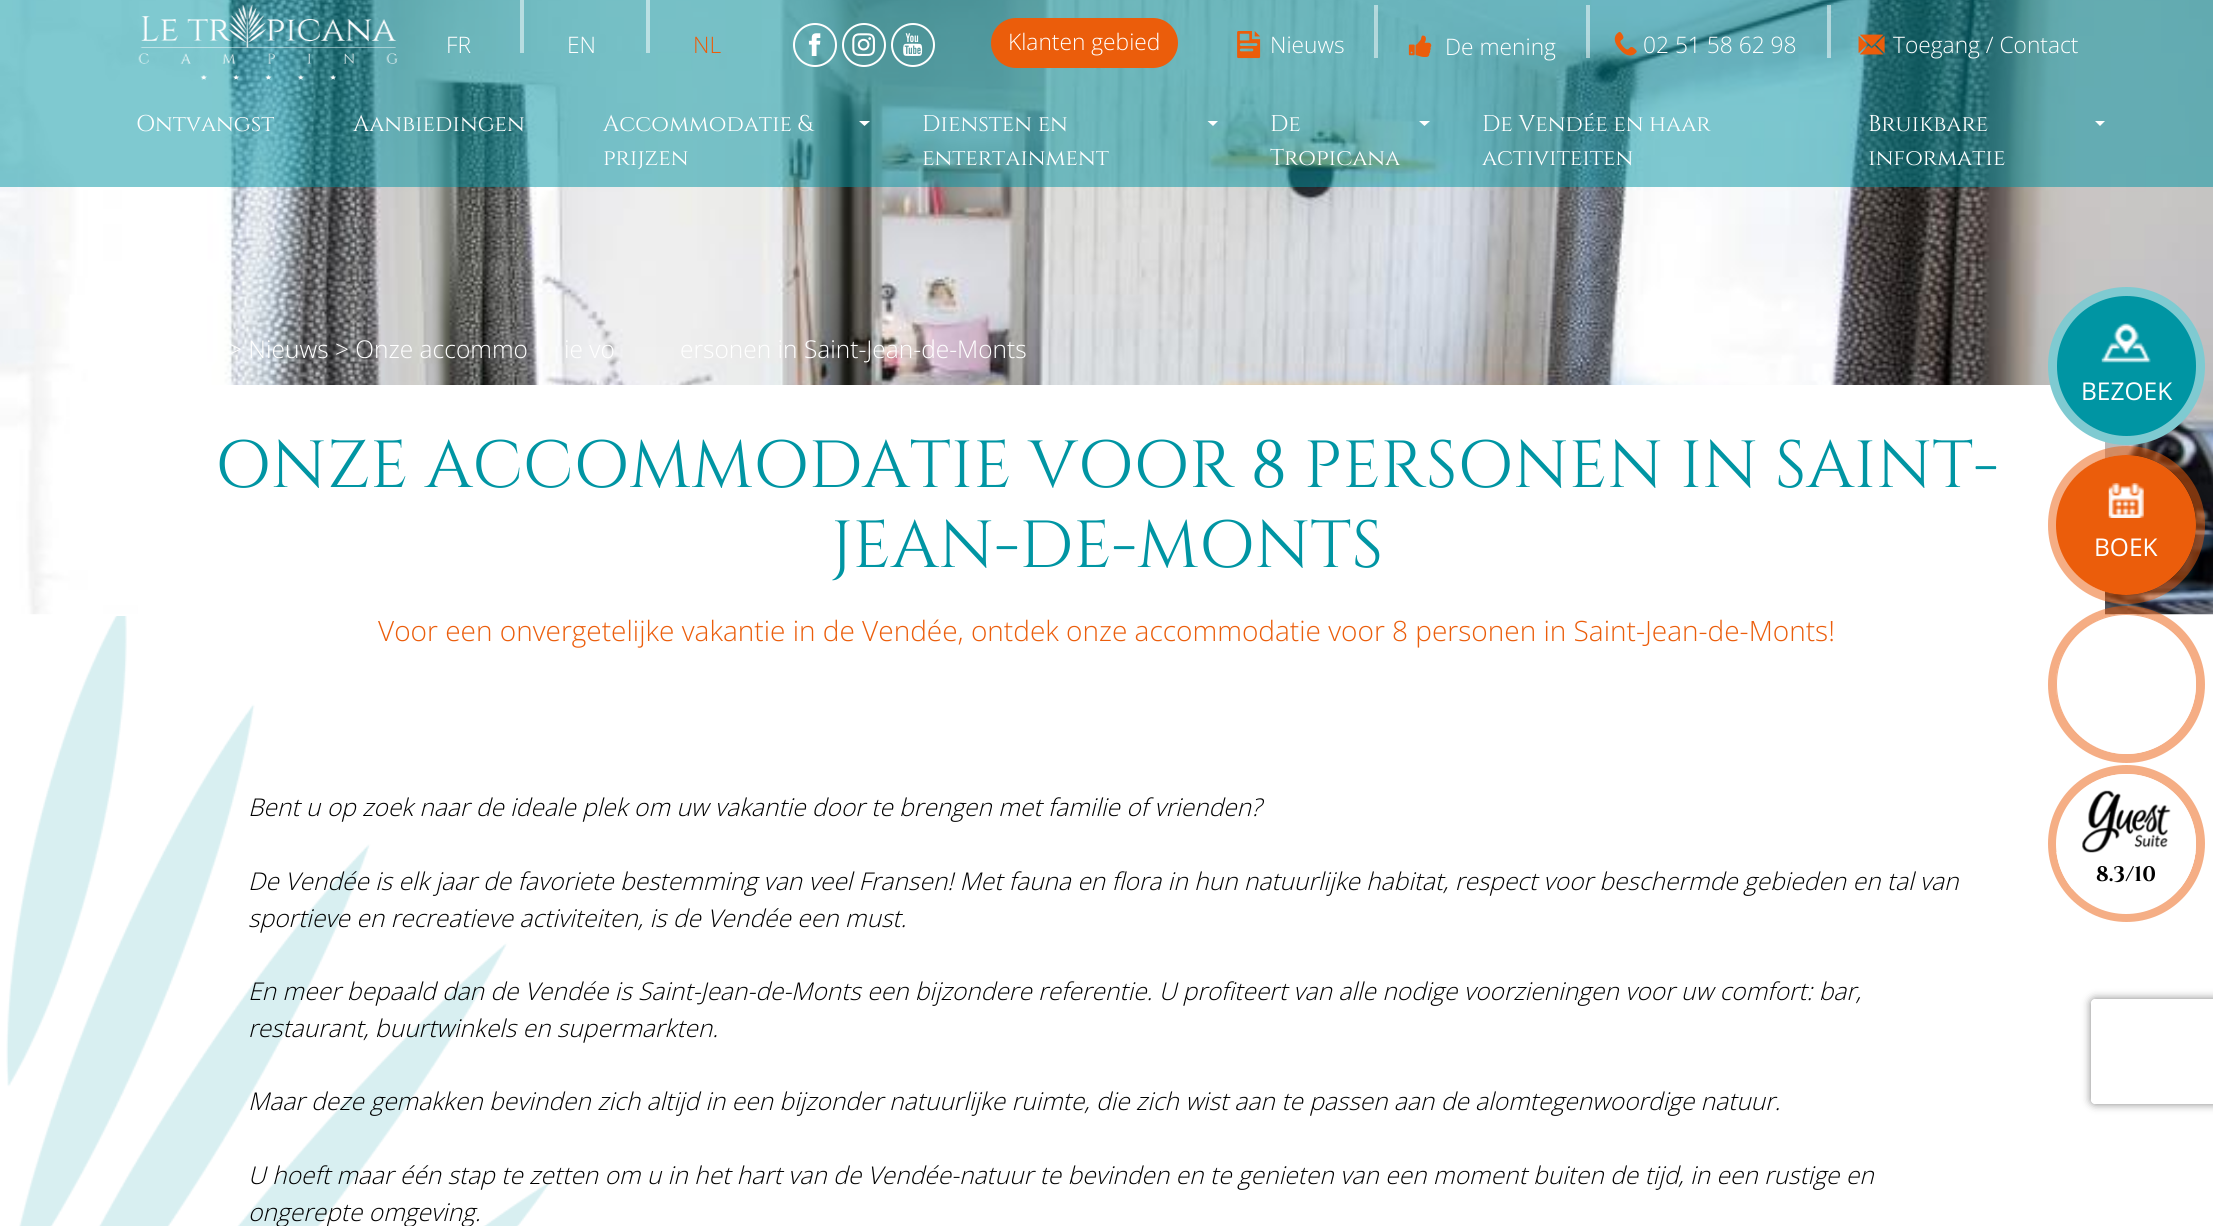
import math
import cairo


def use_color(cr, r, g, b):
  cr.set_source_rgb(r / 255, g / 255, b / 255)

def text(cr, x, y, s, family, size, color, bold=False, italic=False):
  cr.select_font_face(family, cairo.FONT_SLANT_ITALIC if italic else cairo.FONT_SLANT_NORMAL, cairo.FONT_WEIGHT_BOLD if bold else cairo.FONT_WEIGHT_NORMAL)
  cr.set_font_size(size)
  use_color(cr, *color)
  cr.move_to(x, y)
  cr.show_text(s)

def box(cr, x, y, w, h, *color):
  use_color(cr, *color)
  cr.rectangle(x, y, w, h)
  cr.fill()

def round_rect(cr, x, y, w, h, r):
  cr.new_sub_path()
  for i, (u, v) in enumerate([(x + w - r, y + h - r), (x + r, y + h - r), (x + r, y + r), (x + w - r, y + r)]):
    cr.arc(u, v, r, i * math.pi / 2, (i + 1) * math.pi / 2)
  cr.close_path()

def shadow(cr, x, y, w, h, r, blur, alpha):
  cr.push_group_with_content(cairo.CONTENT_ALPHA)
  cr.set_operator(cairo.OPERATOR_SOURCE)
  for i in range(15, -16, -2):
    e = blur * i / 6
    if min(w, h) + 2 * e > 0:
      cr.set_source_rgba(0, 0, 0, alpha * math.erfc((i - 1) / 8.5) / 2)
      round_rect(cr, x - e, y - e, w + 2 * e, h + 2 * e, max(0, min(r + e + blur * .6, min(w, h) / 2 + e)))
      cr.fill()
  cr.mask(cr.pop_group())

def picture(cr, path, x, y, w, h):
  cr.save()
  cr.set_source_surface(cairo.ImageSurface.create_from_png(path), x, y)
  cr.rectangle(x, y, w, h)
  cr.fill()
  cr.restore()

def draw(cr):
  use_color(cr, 255, 255, 255)
  cr.paint()
  picture(cr, "img_09.png", 0, 0, 2213, 615)
  cr.set_source_rgba(0, 0.584, 0.639, 0.5)
  cr.rectangle(0, 0, 2213, 187)
  cr.fill()
  picture(cr, "img_01.png", 138, 4, 260, 76)
  box(cr, 520, 0, 4, 53, 184, 221, 224)
  box(cr, 646, 0, 4, 53, 187, 224, 227)
  cr.arc(815, 45, 21, 0, 2 * math.pi)
  use_color(cr, 255, 255, 255)
  cr.stroke()
  picture(cr, "img_02.png", 808, 33, 13, 23)
  cr.arc(864, 45, 21, 0, 2 * math.pi)
  cr.stroke()
  picture(cr, "img_03.png", 852, 33, 23, 23)
  cr.arc(913, 45, 21, 0, 2 * math.pi)
  cr.stroke()
  picture(cr, "img_04.png", 903, 33, 20, 23)
  use_color(cr, 235, 93, 11)
  round_rect(cr, 991, 18, 187, 50, 25)
  cr.fill()
  picture(cr, "img_05.png", 1237, 31, 24, 28)
  cr.set_source_rgba(1, 1, 1, 0.5)
  cr.rectangle(1374, 5, 4, 53)
  cr.fill()
  picture(cr, "img_06.png", 1408, 35, 24, 22)
  cr.rectangle(1586, 5, 4, 53)
  cr.fill()
  picture(cr, "img_07.png", 1614, 31, 23, 25)
  cr.rectangle(1827, 5, 4, 53)
  cr.fill()
  picture(cr, "img_08.png", 1858, 34, 27, 21)
  use_color(cr, 255, 255, 255)
  cr.new_path()
  cr.move_to(859, 121)
  cr.line_to(870, 121)
  cr.line_to(864.5, 126)
  cr.close_path()
  cr.fill()
  cr.new_path()
  cr.move_to(1207.5, 121)
  cr.line_to(1218, 121)
  cr.line_to(1213, 126)
  cr.close_path()
  cr.fill()
  cr.new_path()
  cr.move_to(1419, 121)
  cr.line_to(1430, 121)
  cr.line_to(1424.5, 126)
  cr.close_path()
  cr.fill()
  cr.new_path()
  cr.move_to(2095, 121)
  cr.line_to(2105, 121)
  cr.line_to(2100, 126)
  cr.close_path()
  cr.fill()
  box(cr, 138, 385, 1967, 230, 255, 255, 255)
  picture(cr, "img_10.png", 6, 616, 544, 610)
  use_color(cr, 0, 149, 163)
  round_rect(cr, 2052.5, 291.5, 148, 149, 74)
  cr.fill_preserve()
  use_color(cr, 127, 202, 209)
  cr.set_line_width(9)
  cr.stroke()
  picture(cr, "img_11.png", 2101, 323, 50, 40)
  use_color(cr, 235, 93, 11)
  cr.arc(2126, 525, 70, 0, 2 * math.pi)
  cr.fill()
  round_rect(cr, 2052.5, 450.5, 148, 149, 74)
  cr.set_source_rgba(0.922, 0.365, 0.043, 0.5)
  cr.stroke()
  picture(cr, "img_12.png", 2108, 483, 36, 35)
  cr.arc(2126.5, 684.5, 74, 0, 2 * math.pi)
  cr.stroke()
  use_color(cr, 255, 255, 255)
  cr.arc(2126, 684, 70, 0, 2 * math.pi)
  cr.fill()
  cr.set_source_rgba(0.922, 0.365, 0.043, 0.5)
  cr.new_path()
  cr.move_to(2126, 615)
  cr.curve_to(2165, 615, 2196, 646, 2196, 684)
  cr.curve_to(2196, 645, 2165, 614, 2126, 614)
  cr.curve_to(2087, 614, 2056, 645, 2056, 684)
  cr.curve_to(2056, 723, 2087, 754, 2126, 754)
  cr.curve_to(2088, 754, 2057, 723, 2057, 684)
  cr.curve_to(2057, 646, 2088, 615, 2126, 615)
  cr.close_path()
  cr.fill()
  cr.arc(2126.5, 843.5, 74, 0, 2 * math.pi)
  use_color(cr, 245, 174, 133)
  cr.stroke()
  use_color(cr, 255, 255, 255)
  cr.arc(2126, 844, 70, 0, 2 * math.pi)
  cr.fill()
  cr.save()
  round_rect(cr, 2056, 774, 140, 140, 70)
  cr.clip()
  box(cr, 2056, 852, 140, 37, 255, 255, 255)
  cr.restore()
  picture(cr, "img_13.png", 2082, 790, 89, 63)
  cr.save()
  cr.set_fill_rule(cairo.FILL_RULE_EVEN_ODD)
  cr.new_path()
  cr.move_to(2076, 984)
  cr.line_to(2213, 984)
  cr.line_to(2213, 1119)
  cr.line_to(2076, 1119)
  cr.close_path()
  cr.move_to(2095, 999)
  cr.line_to(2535, 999)
  cr.curve_to(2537, 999, 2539, 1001, 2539, 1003)
  cr.line_to(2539, 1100)
  cr.curve_to(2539, 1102, 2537, 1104, 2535, 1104)
  cr.line_to(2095, 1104)
  cr.curve_to(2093, 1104, 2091, 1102, 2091, 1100)
  cr.line_to(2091, 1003)
  cr.curve_to(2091, 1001, 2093, 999, 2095, 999)
  cr.close_path()
  cr.clip()
  use_color(cr, 128, 128, 128)
  shadow(cr, 2091, 999, 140, 105, 4, 4.5, 1)
  cr.restore()
  text(cr, 446, 53, "FR", "Open Sans Light", 22.75, (255, 255, 255))
  text(cr, 567, 53, "EN", "Open Sans Light", 22.75, (255, 255, 255))
  text(cr, 693, 53, "NL", "Open Sans Light", 22.75, (235, 93, 11))
  text(cr, 1008, 50, "Klanten gebied", "Open Sans Light", 22.75, (255, 255, 255))
  text(cr, 1270, 53, "Nieuws", "Open Sans Light", 22.75, (255, 255, 255))
  text(cr, 1445, 55, "De mening", "Open Sans Light", 22.75, (255, 255, 255))
  text(cr, 1643, 53, "02 51 58 62 98", "Open Sans Light", 22.75, (255, 255, 255))
  text(cr, 1893, 53, "Toegang / Contact", "Open Sans Light", 22.75, (255, 255, 255))
  text(cr, 136, 131, "Ontvangst", "Cinzel", 22.75, (255, 255, 255))
  text(cr, 353, 131, "Aanbiedingen", "Cinzel", 22.75, (255, 255, 255))
  text(cr, 603, 131, "Accommodatie &", "Cinzel", 22.75, (255, 255, 255))
  text(cr, 603, 165, "prijzen", "Cinzel", 22.75, (255, 255, 255))
  text(cr, 922, 131, "Diensten en", "Cinzel", 22.75, (255, 255, 255))
  text(cr, 922, 165, "entertainment", "Cinzel", 22.75, (255, 255, 255))
  text(cr, 1270, 131, "De", "Cinzel", 22.75, (255, 255, 255))
  text(cr, 1270, 165, "Tropicana", "Cinzel", 22.75, (255, 255, 255))
  text(cr, 1482, 131, "De Vendée en haar", "Cinzel", 22.75, (255, 255, 255))
  text(cr, 1482, 165, "activiteiten", "Cinzel", 22.75, (255, 255, 255))
  text(cr, 1868, 131, "Bruikbare", "Cinzel", 22.75, (255, 255, 255))
  text(cr, 1868, 165, "informatie", "Cinzel", 22.75, (255, 255, 255))
  text(cr, 228, 358, "> Nieuws > Onze accommo", "Open Sans Light", 24.5, (255, 255, 255))
  text(cr, 564, 358, "ie vo", "Open Sans Light", 24.5, (255, 255, 255))
  text(cr, 680, 358, "ersonen in Saint-Jean-de-Monts", "Open Sans Light", 24.5, (255, 255, 255))
  text(cr, 215, 487, "ONZE ACCOMMODATIE VOOR 8 PERSONEN IN SAINT-", "Cinzel", 66.5, (0, 149, 163))
  text(cr, 831, 567, "JEAN-DE-MONTS", "Cinzel", 66.5, (0, 149, 163))
  text(cr, 378, 641, "Voor een onvergetelijke vakantie in de Vendée, ontdek onze accommodatie voor 8 personen in Saint-Jean-de-Monts!", "Open Sans Light", 28, (235, 93, 11))
  text(cr, 248, 816, "Bent u op zoek naar de ideale plek om uw vakantie door te brengen met familie of vrienden?", "Open Sans Light", 24.5, (0, 0, 0), italic=True)
  text(cr, 248, 890, "De Vendée is elk jaar de favoriete bestemming van veel Fransen! Met fauna en flora in hun natuurlijke habitat, respect voor beschermde gebieden en tal van", "Open Sans Light", 24.5, (0, 0, 0), italic=True)
  text(cr, 248, 927, "sportieve en recreatieve activiteiten, is de Vendée een must.", "Open Sans Light", 24.5, (0, 0, 0), italic=True)
  text(cr, 248, 1000, "En meer bepaald dan de Vendée is Saint-Jean-de-Monts een bijzondere referentie. U profiteert van alle nodige voorzieningen voor uw comfort: bar,", "Open Sans Light", 24.5, (0, 0, 0), italic=True)
  text(cr, 248, 1037, "restaurant, buurtwinkels en supermarkten.", "Open Sans Light", 24.5, (0, 0, 0), italic=True)
  text(cr, 248, 1110, "Maar deze gemakken bevinden zich altijd in een bijzonder natuurlijke ruimte, die zich wist aan te passen aan de alomtegenwoordige natuur.", "Open Sans Light", 24.5, (0, 0, 0), italic=True)
  text(cr, 248, 1184, "U hoeft maar één stap te zetten om u in het hart van de Vendée-natuur te bevinden en te genieten van een moment buiten de tijd, in een rustige en", "Open Sans Light", 24.5, (0, 0, 0), italic=True)
  text(cr, 248, 1221, "ongerepte omgeving.", "Open Sans Light", 24.5, (0, 0, 0), italic=True)
  text(cr, 2081, 400, "BEZOEK", "Open Sans", 24.5, (255, 255, 255))
  text(cr, 2094, 556, "BOEK", "Open Sans", 24.5, (255, 255, 255))
  text(cr, 2096, 881, "8.3/10", "Cinzel", 21, (0, 0, 0), bold=True)


surface = cairo.ImageSurface(cairo.FORMAT_RGB24, 2213, 1226)
cr = cairo.Context(surface)
options = cairo.FontOptions()
options.set_hint_metrics(cairo.HINT_METRICS_OFF)
options.set_hint_style(cairo.HINT_STYLE_NONE)
cr.set_font_options(options)
cr.set_miter_limit(4)
draw(cr)
surface.write_to_png("out.png")
